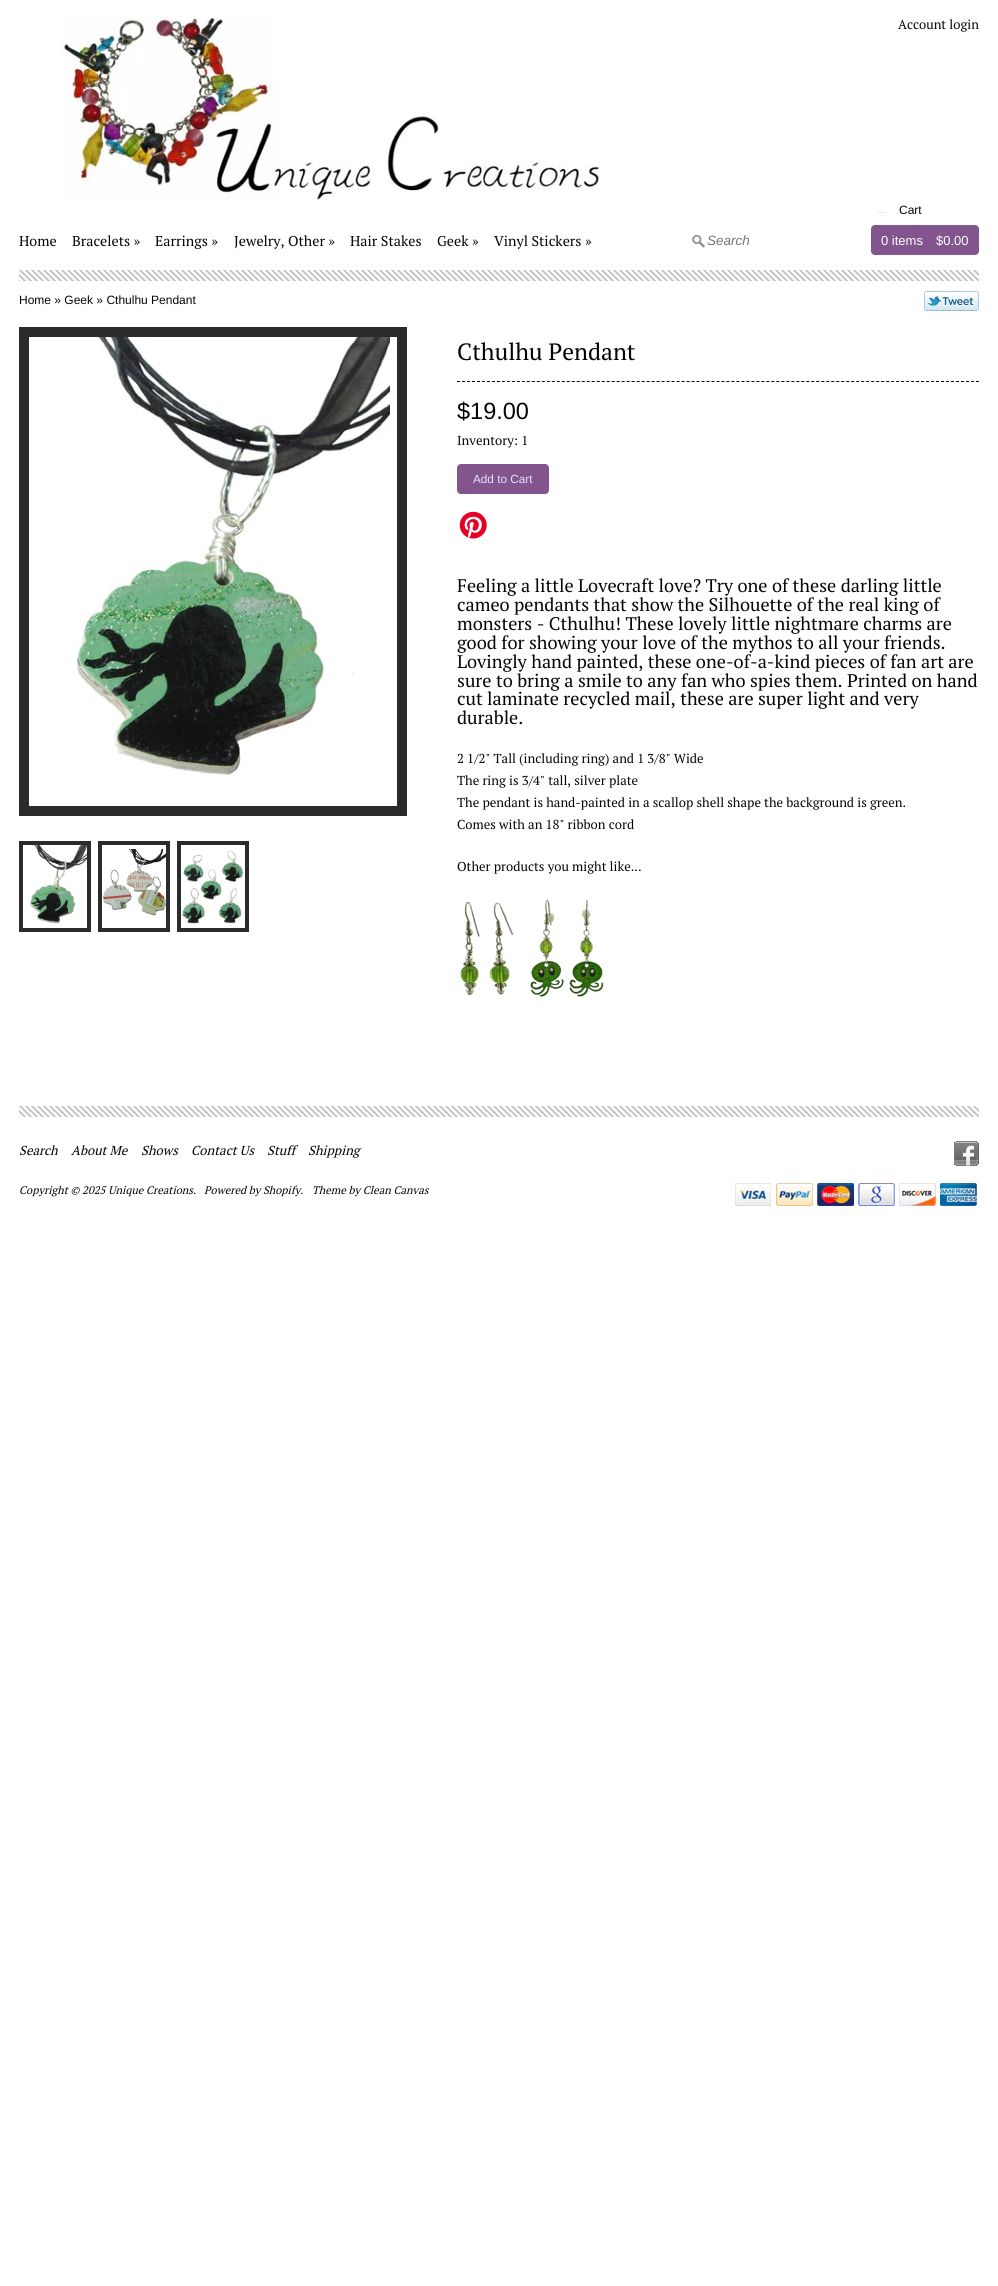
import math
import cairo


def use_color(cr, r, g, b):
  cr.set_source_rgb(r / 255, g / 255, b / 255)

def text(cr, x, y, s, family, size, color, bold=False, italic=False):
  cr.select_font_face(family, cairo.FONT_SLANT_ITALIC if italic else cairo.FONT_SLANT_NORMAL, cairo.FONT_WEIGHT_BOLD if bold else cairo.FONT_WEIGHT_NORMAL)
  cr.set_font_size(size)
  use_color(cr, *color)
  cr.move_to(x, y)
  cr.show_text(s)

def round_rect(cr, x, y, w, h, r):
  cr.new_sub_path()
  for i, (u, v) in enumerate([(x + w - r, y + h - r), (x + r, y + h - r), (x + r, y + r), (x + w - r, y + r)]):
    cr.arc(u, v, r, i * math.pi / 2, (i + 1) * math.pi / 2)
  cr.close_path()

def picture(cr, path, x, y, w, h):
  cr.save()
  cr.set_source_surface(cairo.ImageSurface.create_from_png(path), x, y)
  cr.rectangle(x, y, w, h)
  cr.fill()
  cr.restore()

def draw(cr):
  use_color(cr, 255, 255, 255)
  cr.paint()
  picture(cr, "img_01.png", 59, 17, 540, 185)
  picture(cr, "img_02.png", 19, 270, 960, 11)
  picture(cr, "img_03.png", 692, 235, 13, 13)
  use_color(cr, 130, 85, 143)
  round_rect(cr, 871, 225, 108, 30, 4)
  cr.fill()
  picture(cr, "img_04.png", 872, 204, 13, 12)
  picture(cr, "img_05.png", 924, 291, 55, 20)
  cr.rectangle(24, 332, 378, 479)
  use_color(cr, 42, 43, 42)
  cr.set_line_width(10)
  cr.stroke()
  picture(cr, "img_06.png", 76, 337, 314, 439)
  cr.rectangle(21, 843, 68, 87)
  cr.set_line_width(4)
  cr.stroke()
  picture(cr, "img_07.png", 30, 845, 57, 79)
  cr.rectangle(100, 843, 68, 87)
  cr.stroke()
  picture(cr, "img_08.png", 102, 849, 64, 67)
  cr.rectangle(179, 843, 68, 87)
  cr.stroke()
  picture(cr, "img_09.png", 181, 850, 63, 74)
  cr.new_path()
  cr.move_to(457, 381.5)
  cr.line_to(979, 381.5)
  use_color(cr, 0, 0, 0)
  cr.set_line_width(1)
  cr.set_dash([3, 1.99])
  cr.stroke()
  use_color(cr, 130, 85, 143)
  round_rect(cr, 457, 464, 92, 30, 4)
  cr.fill()
  picture(cr, "img_10.png", 459, 511, 28, 28)
  picture(cr, "img_11.png", 457, 898, 57, 99)
  picture(cr, "img_12.png", 529, 898, 77, 100)
  picture(cr, "img_02.png", 19, 1106, 960, 11)
  picture(cr, "img_13.png", 954, 1141, 25, 25)
  picture(cr, "img_14.png", 735, 1183, 36, 23)
  picture(cr, "img_15.png", 776, 1183, 37, 23)
  picture(cr, "img_16.png", 817, 1183, 37, 23)
  picture(cr, "img_17.png", 858, 1183, 37, 23)
  picture(cr, "img_18.png", 899, 1183, 37, 23)
  picture(cr, "img_19.png", 940, 1183, 37, 23)
  text(cr, 898, 29, "Account login", "PT Serif", 13, (5, 5, 5))
  text(cr, 19, 246, "Home", "PT Serif", 14.25, (5, 5, 5))
  text(cr, 72, 246, "Bracelets »", "PT Serif", 14.25, (5, 5, 5))
  text(cr, 155, 246, "Earrings »", "PT Serif", 14.25, (5, 5, 5))
  text(cr, 234, 246, "Jewelry, Other »", "PT Serif", 14.25, (5, 5, 5))
  text(cr, 350, 246, "Hair Stakes", "PT Serif", 14.25, (5, 5, 5))
  text(cr, 437, 246, "Geek »", "PT Serif", 14.25, (5, 5, 5))
  text(cr, 494, 246, "Vinyl Stickers »", "PT Serif", 14.25, (5, 5, 5))
  text(cr, 707, 245, "Search", "Liberation Sans", 13.5, (119, 119, 119), italic=True)
  text(cr, 899, 214, "Cart", "Liberation Sans", 12, (5, 5, 5))
  text(cr, 881, 245, "0 items", "Liberation Sans", 13, (255, 255, 255))
  text(cr, 936, 245, "$0.00", "Liberation Sans", 13, (255, 255, 255))
  text(cr, 19, 304, "Home » Geek » Cthulhu Pendant", "Liberation Sans", 12, (5, 5, 5))
  text(cr, 457, 360, "Cthulhu Pendant", "PT Serif", 23.5, (5, 5, 5))
  text(cr, 457, 419, "$19.00", "Liberation Sans", 23.5, (5, 5, 5))
  text(cr, 457, 445, "Inventory: 1", "PT Serif", 13, (5, 5, 5))
  text(cr, 473, 483, "Add to Cart", "Liberation Sans", 11.75, (231, 226, 253))
  text(cr, 457, 592, "Feeling a little Lovecraft love? Try one of these darling little", "PT Serif", 18.2, (5, 5, 5))
  text(cr, 457, 611, "cameo pendants that show the Silhouette of the real king of", "PT Serif", 18.2, (5, 5, 5))
  text(cr, 457, 630, "monsters - Cthulhu! These lovely little nightmare charms are", "PT Serif", 18.2, (5, 5, 5))
  text(cr, 457, 649, "good for showing your love of the mythos to all your friends.", "PT Serif", 18.2, (5, 5, 5))
  text(cr, 457, 668, "Lovingly hand painted, these one-of-a-kind pieces of fan art are", "PT Serif", 18.2, (5, 5, 5))
  text(cr, 457, 687, "sure to bring a smile to any fan who spies them. Printed on hand", "PT Serif", 18.2, (5, 5, 5))
  text(cr, 457, 705, "cut laminate recycled mail, these are super light and very", "PT Serif", 18.2, (5, 5, 5))
  text(cr, 457, 724, "durable.", "PT Serif", 18.2, (5, 5, 5))
  text(cr, 457, 763, "2 1/2\" Tall (including ring) and 1 3/8\" Wide", "PT Serif", 13, (5, 5, 5))
  text(cr, 457, 785, "The ring is 3/4\" tall, silver plate", "PT Serif", 13, (5, 5, 5))
  text(cr, 457, 807, "The pendant is hand-painted in a scallop shell shape the background is green.", "PT Serif", 13, (5, 5, 5))
  text(cr, 457, 829, "Comes with an 18\" ribbon cord", "PT Serif", 13, (5, 5, 5))
  text(cr, 457, 871, "Other products you might like...", "PT Serif", 13, (5, 5, 5))
  text(cr, 19, 1155, "Search", "PT Serif", 13, (5, 5, 5), italic=True)
  text(cr, 71, 1155, "About Me", "PT Serif", 13, (5, 5, 5), italic=True)
  text(cr, 141, 1155, "Shows", "PT Serif", 13, (5, 5, 5), italic=True)
  text(cr, 191, 1155, "Contact Us", "PT Serif", 13, (5, 5, 5), italic=True)
  text(cr, 267, 1155, "Stuff", "PT Serif", 13, (5, 5, 5), italic=True)
  text(cr, 308, 1155, "Shipping", "PT Serif", 13, (5, 5, 5), italic=True)
  text(cr, 19, 1194, "Copyright © 2025 Unique Creations.", "PT Serif", 11, (5, 5, 5), italic=True)
  text(cr, 204, 1194, "Powered by Shopify.", "PT Serif", 11, (5, 5, 5), italic=True)
  text(cr, 312, 1194, "Theme by Clean Canvas", "PT Serif", 11, (5, 5, 5), italic=True)


surface = cairo.ImageSurface(cairo.FORMAT_RGB24, 998, 2286)
cr = cairo.Context(surface)
options = cairo.FontOptions()
options.set_hint_metrics(cairo.HINT_METRICS_OFF)
options.set_hint_style(cairo.HINT_STYLE_NONE)
cr.set_font_options(options)
cr.set_miter_limit(4)
draw(cr)
surface.write_to_png("out.png")
